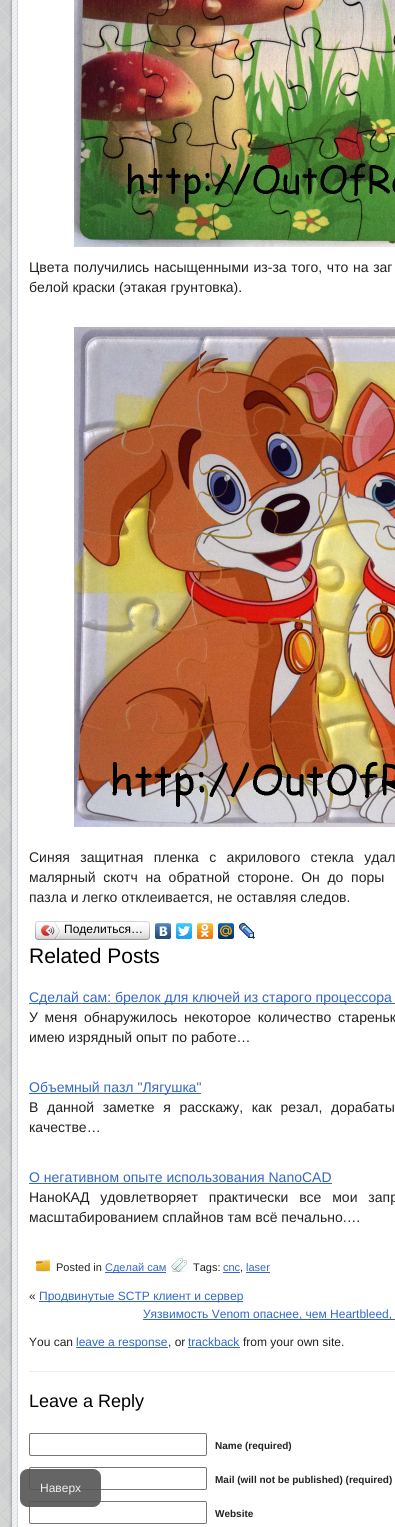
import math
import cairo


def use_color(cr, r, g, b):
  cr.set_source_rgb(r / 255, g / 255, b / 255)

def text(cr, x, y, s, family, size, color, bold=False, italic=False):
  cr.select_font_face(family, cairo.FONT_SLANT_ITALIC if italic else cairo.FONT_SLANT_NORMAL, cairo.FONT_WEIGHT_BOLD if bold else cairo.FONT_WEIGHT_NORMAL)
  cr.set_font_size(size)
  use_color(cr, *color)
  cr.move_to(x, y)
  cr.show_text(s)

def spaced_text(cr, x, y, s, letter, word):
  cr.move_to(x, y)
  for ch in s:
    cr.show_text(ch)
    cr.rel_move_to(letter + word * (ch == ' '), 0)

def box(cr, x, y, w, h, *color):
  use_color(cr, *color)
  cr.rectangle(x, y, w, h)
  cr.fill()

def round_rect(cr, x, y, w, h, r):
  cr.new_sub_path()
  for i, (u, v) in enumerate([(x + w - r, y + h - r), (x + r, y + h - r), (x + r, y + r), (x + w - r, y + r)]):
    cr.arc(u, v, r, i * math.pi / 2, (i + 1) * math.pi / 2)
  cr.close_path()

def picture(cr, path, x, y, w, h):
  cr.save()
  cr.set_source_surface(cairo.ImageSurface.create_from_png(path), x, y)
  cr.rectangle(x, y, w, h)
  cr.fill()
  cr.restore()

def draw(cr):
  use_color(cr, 255, 255, 255)
  cr.paint()
  picture(cr, "img_01.png", 0, 0, 12, 1527)
  picture(cr, "img_02.png", 0, 0, 395, 1527)
  box(cr, 29, 1371, 366, 1, 238, 238, 238)
  picture(cr, "img_03.png", 74, 0, 321, 247)
  picture(cr, "img_04.png", 74, 327, 321, 500)
  picture(cr, "img_05.png", 38, 921, 109, 19)
  picture(cr, "img_06.png", 35, 921, 3, 19)
  picture(cr, "img_07.png", 41, 922, 20, 17)
  picture(cr, "img_08.png", 147, 921, 3, 19)
  picture(cr, "img_09.png", 155, 923, 16, 16)
  picture(cr, "img_10.png", 176, 923, 16, 16)
  picture(cr, "img_11.png", 197, 923, 16, 16)
  picture(cr, "img_12.png", 218, 923, 16, 16)
  picture(cr, "img_13.png", 239, 923, 16, 16)
  box(cr, 29, 1003, 366, 1, 51, 102, 204)
  box(cr, 29, 1093, 172, 1, 51, 102, 204)
  box(cr, 29, 1183, 303, 1, 51, 102, 204)
  picture(cr, "img_14.png", 35, 1259, 16, 13)
  box(cr, 105, 1272, 61, 1, 51, 102, 204)
  picture(cr, "img_15.png", 171, 1258, 16, 14)
  box(cr, 223, 1272, 17, 1, 51, 102, 204)
  box(cr, 246, 1272, 24, 1, 51, 102, 204)
  box(cr, 39, 1301, 204, 1, 51, 102, 204)
  box(cr, 143, 1319, 252, 1, 51, 102, 204)
  box(cr, 76, 1347, 92, 1, 51, 102, 204)
  box(cr, 188, 1347, 52, 1, 51, 102, 204)
  round_rect(cr, 29.5, 1433.5, 177, 22, 1.5)
  use_color(cr, 118, 118, 118)
  cr.set_line_width(1)
  cr.stroke()
  round_rect(cr, 29.5, 1467.5, 177, 22, 1.5)
  cr.stroke()
  round_rect(cr, 29.5, 1501.5, 177, 22, 1.5)
  cr.stroke()
  cr.set_source_rgba(0.333, 0.333, 0.333, 0.9)
  round_rect(cr, 20, 1469, 81, 38, 8)
  cr.fill()
  cr.select_font_face("Liberation Sans")
  cr.set_font_size(14)
  use_color(cr, 34, 34, 34)
  spaced_text(cr, 29, 272, "Цвета получились насыщенными из-за того, что на заг", 0, 0.75)
  text(cr, 29, 292, "белой краски (этакая грунтовка).", "Liberation Sans", 14, (34, 34, 34))
  spaced_text(cr, 29, 862, "Синяя защитная пленка с акрилового стекла удал", 0, 6.5)
  spaced_text(cr, 29, 882, "малярный скотч на обратной стороне. Он до поры", 0, 3.75)
  text(cr, 29, 902, "пазла и легко отклеивается, не оставляя следов.", "Liberation Sans", 14, (34, 34, 34))
  text(cr, 64, 933, "Поделиться…", "Liberation Sans", 12, (0, 0, 0))
  text(cr, 29, 963, "Related Posts", "Liberation Sans", 21, (0, 0, 0))
  text(cr, 29, 1002, "Сделай сам: брелок для ключей из старого процессора", "Liberation Sans", 14, (51, 102, 204))
  use_color(cr, 34, 34, 34)
  spaced_text(cr, 29, 1022, "У меня обнаружилось некоторое количество стареньк", 0, 2.75)
  text(cr, 29, 1042, "имею изрядный опыт по работе…", "Liberation Sans", 14, (34, 34, 34))
  text(cr, 29, 1092, "Объемный пазл \"Лягушка\"", "Liberation Sans", 14, (51, 102, 204))
  use_color(cr, 34, 34, 34)
  spaced_text(cr, 29, 1112, "В данной заметке я расскажу, как резал, дорабаты", 0, 4.75)
  text(cr, 29, 1132, "качестве…", "Liberation Sans", 14, (34, 34, 34))
  text(cr, 29, 1182, "О негативном опыте иcпользования NanoCAD", "Liberation Sans", 14, (51, 102, 204))
  use_color(cr, 34, 34, 34)
  spaced_text(cr, 29, 1202, "НаноКАД удовлетворяет практически все мои запр", 0, 7)
  text(cr, 29, 1222, "масштабированием сплайнов там всё печально.…", "Liberation Sans", 14, (34, 34, 34))
  text(cr, 56, 1271, "Posted in", "Liberation Sans", 11, (34, 34, 34))
  text(cr, 105, 1271, "Сделай сам", "Liberation Sans", 11, (51, 102, 204))
  text(cr, 193, 1271, "Tags:", "Liberation Sans", 11, (34, 34, 34))
  text(cr, 223, 1271, "cnc", "Liberation Sans", 11, (51, 102, 204))
  text(cr, 240, 1271, ",", "Liberation Sans", 11, (34, 34, 34))
  text(cr, 246, 1271, "laser", "Liberation Sans", 11, (51, 102, 204))
  text(cr, 29, 1300, "«", "Liberation Sans", 12, (34, 34, 34))
  text(cr, 39, 1300, "Продвинутые SCTP клиент и сервер", "Liberation Sans", 12, (51, 102, 204))
  text(cr, 143, 1318, "Уязвимость Venom опаснее, чем Heartbleed,", "Liberation Sans", 12, (51, 102, 204))
  text(cr, 29, 1346, "You can", "Liberation Sans", 12, (34, 34, 34))
  text(cr, 76, 1346, "leave a response", "Liberation Sans", 12, (51, 102, 204))
  text(cr, 168, 1346, ", or", "Liberation Sans", 12, (34, 34, 34))
  text(cr, 188, 1346, "trackback", "Liberation Sans", 12, (51, 102, 204))
  text(cr, 243, 1346, "from your own site.", "Liberation Sans", 12, (34, 34, 34))
  text(cr, 29, 1407, "Leave a Reply", "Liberation Sans", 18, (0, 0, 0))
  text(cr, 215, 1449, "Name (required)", "Liberation Sans", 10, (34, 34, 34), bold=True)
  text(cr, 215, 1483, "Mail (will not be published) (required)", "Liberation Sans", 10, (34, 34, 34), bold=True)
  text(cr, 215, 1517, "Website", "Liberation Sans", 10, (34, 34, 34), bold=True)
  text(cr, 40, 1492, "Наверх", "Liberation Sans", 12, (240, 240, 240))


surface = cairo.ImageSurface(cairo.FORMAT_RGB24, 395, 1527)
cr = cairo.Context(surface)
options = cairo.FontOptions()
options.set_hint_metrics(cairo.HINT_METRICS_OFF)
options.set_hint_style(cairo.HINT_STYLE_NONE)
cr.set_font_options(options)
cr.set_miter_limit(4)
draw(cr)
surface.write_to_png("out.png")
